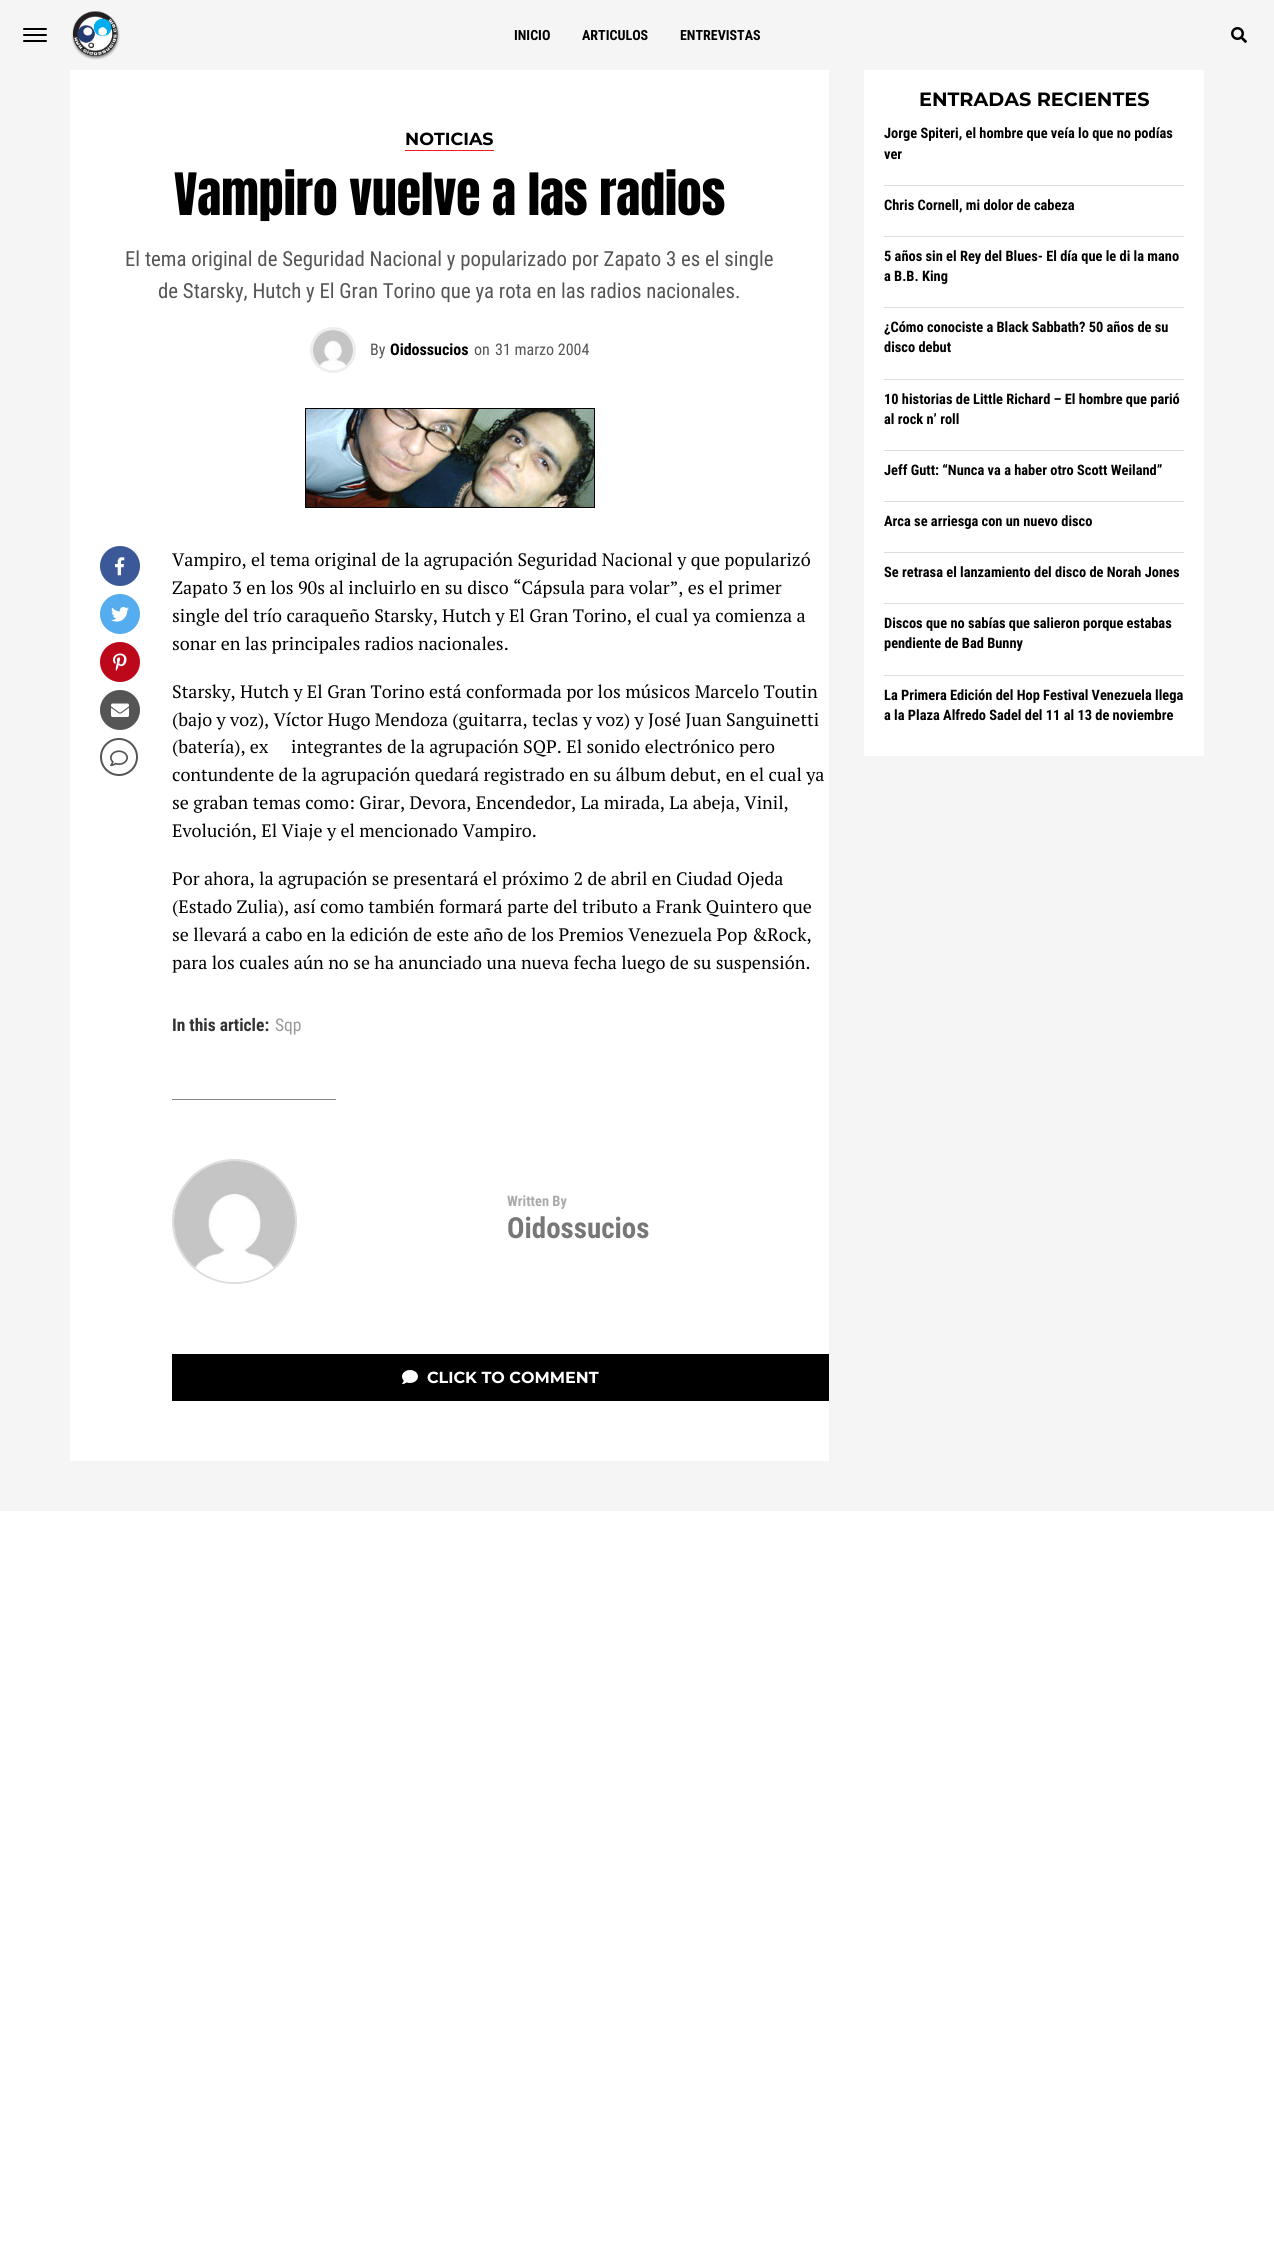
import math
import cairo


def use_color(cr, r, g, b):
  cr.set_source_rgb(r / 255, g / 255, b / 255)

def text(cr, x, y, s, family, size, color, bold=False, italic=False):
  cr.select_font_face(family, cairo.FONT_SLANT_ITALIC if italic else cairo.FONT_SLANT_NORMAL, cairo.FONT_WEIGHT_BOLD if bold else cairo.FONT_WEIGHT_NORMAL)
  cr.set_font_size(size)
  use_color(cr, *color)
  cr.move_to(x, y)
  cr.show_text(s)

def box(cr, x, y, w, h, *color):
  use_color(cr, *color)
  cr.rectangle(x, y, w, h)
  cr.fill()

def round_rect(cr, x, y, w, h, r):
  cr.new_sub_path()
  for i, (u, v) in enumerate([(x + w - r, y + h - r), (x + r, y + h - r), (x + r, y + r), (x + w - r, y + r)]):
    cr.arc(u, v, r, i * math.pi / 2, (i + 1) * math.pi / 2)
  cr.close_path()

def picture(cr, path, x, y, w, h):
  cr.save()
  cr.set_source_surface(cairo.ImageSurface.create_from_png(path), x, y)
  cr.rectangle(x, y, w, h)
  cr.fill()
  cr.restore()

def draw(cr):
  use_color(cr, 255, 255, 255)
  cr.paint()
  box(cr, 0, 0, 1274, 1511, 245, 245, 245)
  use_color(cr, 0, 0, 0)
  round_rect(cr, 23, 28, 24, 2, 1)
  cr.fill()
  round_rect(cr, 23, 34, 24, 2, 1)
  cr.fill()
  round_rect(cr, 23, 40, 24, 2, 1)
  cr.fill()
  picture(cr, "img_01.png", 71, 11, 49, 49)
  picture(cr, "img_02.png", 1231, 27, 16, 16)
  box(cr, 70, 70, 759, 1391, 255, 255, 255)
  box(cr, 405, 150, 89, 1, 237, 28, 36)
  cr.arc(333, 350, 21.5, 0, 2 * math.pi)
  use_color(cr, 238, 238, 238)
  cr.set_line_width(3)
  cr.stroke()
  picture(cr, "img_03.png", 313, 330, 40, 40)
  picture(cr, "img_04.png", 305, 408, 290, 100)
  use_color(cr, 59, 89, 152)
  cr.arc(120, 566, 20, 0, 2 * math.pi)
  cr.fill()
  picture(cr, "img_05.png", 115, 557, 10, 19)
  use_color(cr, 85, 172, 238)
  cr.arc(120, 614, 20, 0, 2 * math.pi)
  cr.fill()
  picture(cr, "img_06.png", 111, 606, 18, 16)
  use_color(cr, 189, 8, 28)
  cr.arc(120, 662, 20, 0, 2 * math.pi)
  cr.fill()
  picture(cr, "img_07.png", 113, 653, 14, 18)
  use_color(cr, 85, 85, 85)
  cr.arc(120, 710, 20, 0, 2 * math.pi)
  cr.fill()
  picture(cr, "img_08.png", 111, 703, 18, 14)
  cr.arc(119, 757, 18, 0, 2 * math.pi)
  cr.set_line_width(2)
  cr.stroke()
  picture(cr, "img_09.png", 110, 750, 18, 17)
  box(cr, 172, 1099, 164, 1, 136, 136, 136)
  cr.arc(234.5, 1221.5, 61.5, 0, 2 * math.pi)
  use_color(cr, 221, 221, 221)
  cr.stroke()
  picture(cr, "img_10.png", 174, 1161, 121, 121)
  box(cr, 172, 1354, 657, 47, 0, 0, 0)
  picture(cr, "img_11.png", 402, 1370, 16, 14)
  box(cr, 864, 70, 340, 686, 255, 255, 255)
  box(cr, 884, 185, 300, 1, 221, 221, 221)
  box(cr, 884, 236, 300, 1, 221, 221, 221)
  box(cr, 884, 307, 300, 1, 221, 221, 221)
  box(cr, 884, 379, 300, 1, 221, 221, 221)
  box(cr, 884, 450, 300, 1, 221, 221, 221)
  box(cr, 884, 501, 300, 1, 221, 221, 221)
  box(cr, 884, 552, 300, 1, 221, 221, 221)
  box(cr, 884, 603, 300, 1, 221, 221, 221)
  box(cr, 884, 675, 300, 1, 221, 221, 221)
  text(cr, 514, 40, "INICIO", "Roboto Condensed", 14, (0, 0, 0), bold=True)
  text(cr, 582, 40, "ARTICULOS", "Roboto Condensed", 14, (0, 0, 0), bold=True)
  text(cr, 680, 40, "ENTREVISTAS", "Roboto Condensed", 14, (0, 0, 0), bold=True)
  text(cr, 405, 145, "NOTICIAS", "Montserrat", 17.5, (0, 0, 0), bold=True)
  text(cr, 174, 215, "Vampiro vuelve a las radios", "Anton", 49.6, (0, 0, 0))
  text(cr, 125, 266, "El tema original de Seguridad Nacional y popularizado por Zapato 3 es el single", "Roboto Condensed", 20.8, (85, 85, 85))
  text(cr, 158, 298, "de Starsky, Hutch y El Gran Torino que ya rota en las radios nacionales.", "Roboto Condensed", 20.8, (85, 85, 85))
  text(cr, 370, 355, "By", "Roboto Condensed", 16, (85, 85, 85))
  text(cr, 390, 355, "Oidossucios", "Roboto Condensed", 16, (0, 0, 0), bold=True)
  text(cr, 474, 355, "on", "Roboto Condensed", 16, (85, 85, 85))
  text(cr, 495, 355, "31 marzo 2004", "Roboto Condensed", 16, (85, 85, 85))
  text(cr, 172, 566, "Vampiro, el tema original de la agrupación Seguridad Nacional y que popularizó", "PT Serif", 18, (0, 0, 0))
  text(cr, 172, 594, "Zapato 3 en los 90s al incluirlo en su disco “Cápsula para volar”, es el primer", "PT Serif", 18, (0, 0, 0))
  text(cr, 172, 622, "single del trío caraqueño Starsky, Hutch y El Gran Torino, el cual ya comienza a", "PT Serif", 18, (0, 0, 0))
  text(cr, 172, 650, "sonar en las principales radios nacionales.", "PT Serif", 18, (0, 0, 0))
  text(cr, 172, 698, "Starsky, Hutch y El Gran Torino está conformada por los músicos Marcelo Toutin", "PT Serif", 18, (0, 0, 0))
  text(cr, 172, 726, "(bajo y voz), Víctor Hugo Mendoza (guitarra, teclas y voz) y José Juan Sanguinetti", "PT Serif", 18, (0, 0, 0))
  text(cr, 172, 753, "(batería), ex", "PT Serif", 18, (0, 0, 0))
  text(cr, 291, 753, "integrantes de la agrupación SQP. El sonido electrónico pero", "PT Serif", 18, (0, 0, 0))
  text(cr, 172, 781, "contundente de la agrupación quedará registrado en su álbum debut, en el cual ya", "PT Serif", 18, (0, 0, 0))
  text(cr, 172, 809, "se graban temas como: Girar, Devora, Encendedor, La mirada, La abeja, Vinil,", "PT Serif", 18, (0, 0, 0))
  text(cr, 172, 837, "Evolución, El Viaje y el mencionado Vampiro.", "PT Serif", 18, (0, 0, 0))
  text(cr, 172, 885, "Por ahora, la agrupación se presentará el próximo 2 de abril en Ciudad Ojeda", "PT Serif", 18, (0, 0, 0))
  text(cr, 172, 913, "(Estado Zulia), así como también formará parte del tributo a Frank Quintero que", "PT Serif", 18, (0, 0, 0))
  text(cr, 172, 941, "se llevará a cabo en la edición de este año de los Premios Venezuela Pop &Rock,", "PT Serif", 18, (0, 0, 0))
  text(cr, 172, 969, "para los cuales aún no se ha anunciado una nueva fecha luego de su suspensión.", "PT Serif", 18, (0, 0, 0))
  text(cr, 172, 1031, "In this article:", "Roboto Condensed", 17.5, (51, 51, 51), bold=True)
  text(cr, 275, 1031, "Sqp", "Roboto Condensed", 17.5, (153, 153, 153))
  text(cr, 507, 1206, "Written By", "Roboto Condensed", 14.4, (170, 170, 170), bold=True)
  text(cr, 507, 1238, "Oidossucios", "Roboto Condensed", 29, (119, 119, 119), bold=True)
  text(cr, 427, 1383, "CLICK TO COMMENT", "Montserrat", 16, (255, 255, 255), bold=True)
  text(cr, 919, 106, "ENTRADAS RECIENTES", "Montserrat", 19.25, (0, 0, 0), bold=True)
  text(cr, 884, 138, "Jorge Spiteri, el hombre que veía lo que no podías", "Roboto Condensed", 14.4, (0, 0, 0), bold=True)
  text(cr, 884, 159, "ver", "Roboto Condensed", 14.4, (0, 0, 0), bold=True)
  text(cr, 884, 210, "Chris Cornell, mi dolor de cabeza", "Roboto Condensed", 14.4, (0, 0, 0), bold=True)
  text(cr, 884, 261, "5 años sin el Rey del Blues- El día que le di la mano", "Roboto Condensed", 14.4, (0, 0, 0), bold=True)
  text(cr, 884, 281, "a B.B. King", "Roboto Condensed", 14.4, (0, 0, 0), bold=True)
  text(cr, 884, 332, "¿Cómo conociste a Black Sabbath? 50 años de su", "Roboto Condensed", 14.4, (0, 0, 0), bold=True)
  text(cr, 884, 352, "disco debut", "Roboto Condensed", 14.4, (0, 0, 0), bold=True)
  text(cr, 884, 404, "10 historias de Little Richard – El hombre que parió", "Roboto Condensed", 14.4, (0, 0, 0), bold=True)
  text(cr, 884, 424, "al rock n’ roll", "Roboto Condensed", 14.4, (0, 0, 0), bold=True)
  text(cr, 884, 475, "Jeff Gutt: “Nunca va a haber otro Scott Weiland”", "Roboto Condensed", 14.4, (0, 0, 0), bold=True)
  text(cr, 884, 526, "Arca se arriesga con un nuevo disco", "Roboto Condensed", 14.4, (0, 0, 0), bold=True)
  text(cr, 884, 577, "Se retrasa el lanzamiento del disco de Norah Jones", "Roboto Condensed", 14.4, (0, 0, 0), bold=True)
  text(cr, 884, 628, "Discos que no sabías que salieron porque estabas", "Roboto Condensed", 14.4, (0, 0, 0), bold=True)
  text(cr, 884, 648, "pendiente de Bad Bunny", "Roboto Condensed", 14.4, (0, 0, 0), bold=True)
  text(cr, 884, 700, "La Primera Edición del Hop Festival Venezuela llega", "Roboto Condensed", 14.4, (0, 0, 0), bold=True)
  text(cr, 884, 720, "a la Plaza Alfredo Sadel del 11 al 13 de noviembre", "Roboto Condensed", 14.4, (0, 0, 0), bold=True)


surface = cairo.ImageSurface(cairo.FORMAT_RGB24, 1274, 2252)
cr = cairo.Context(surface)
options = cairo.FontOptions()
options.set_hint_metrics(cairo.HINT_METRICS_OFF)
options.set_hint_style(cairo.HINT_STYLE_NONE)
cr.set_font_options(options)
cr.set_miter_limit(4)
draw(cr)
surface.write_to_png("out.png")
